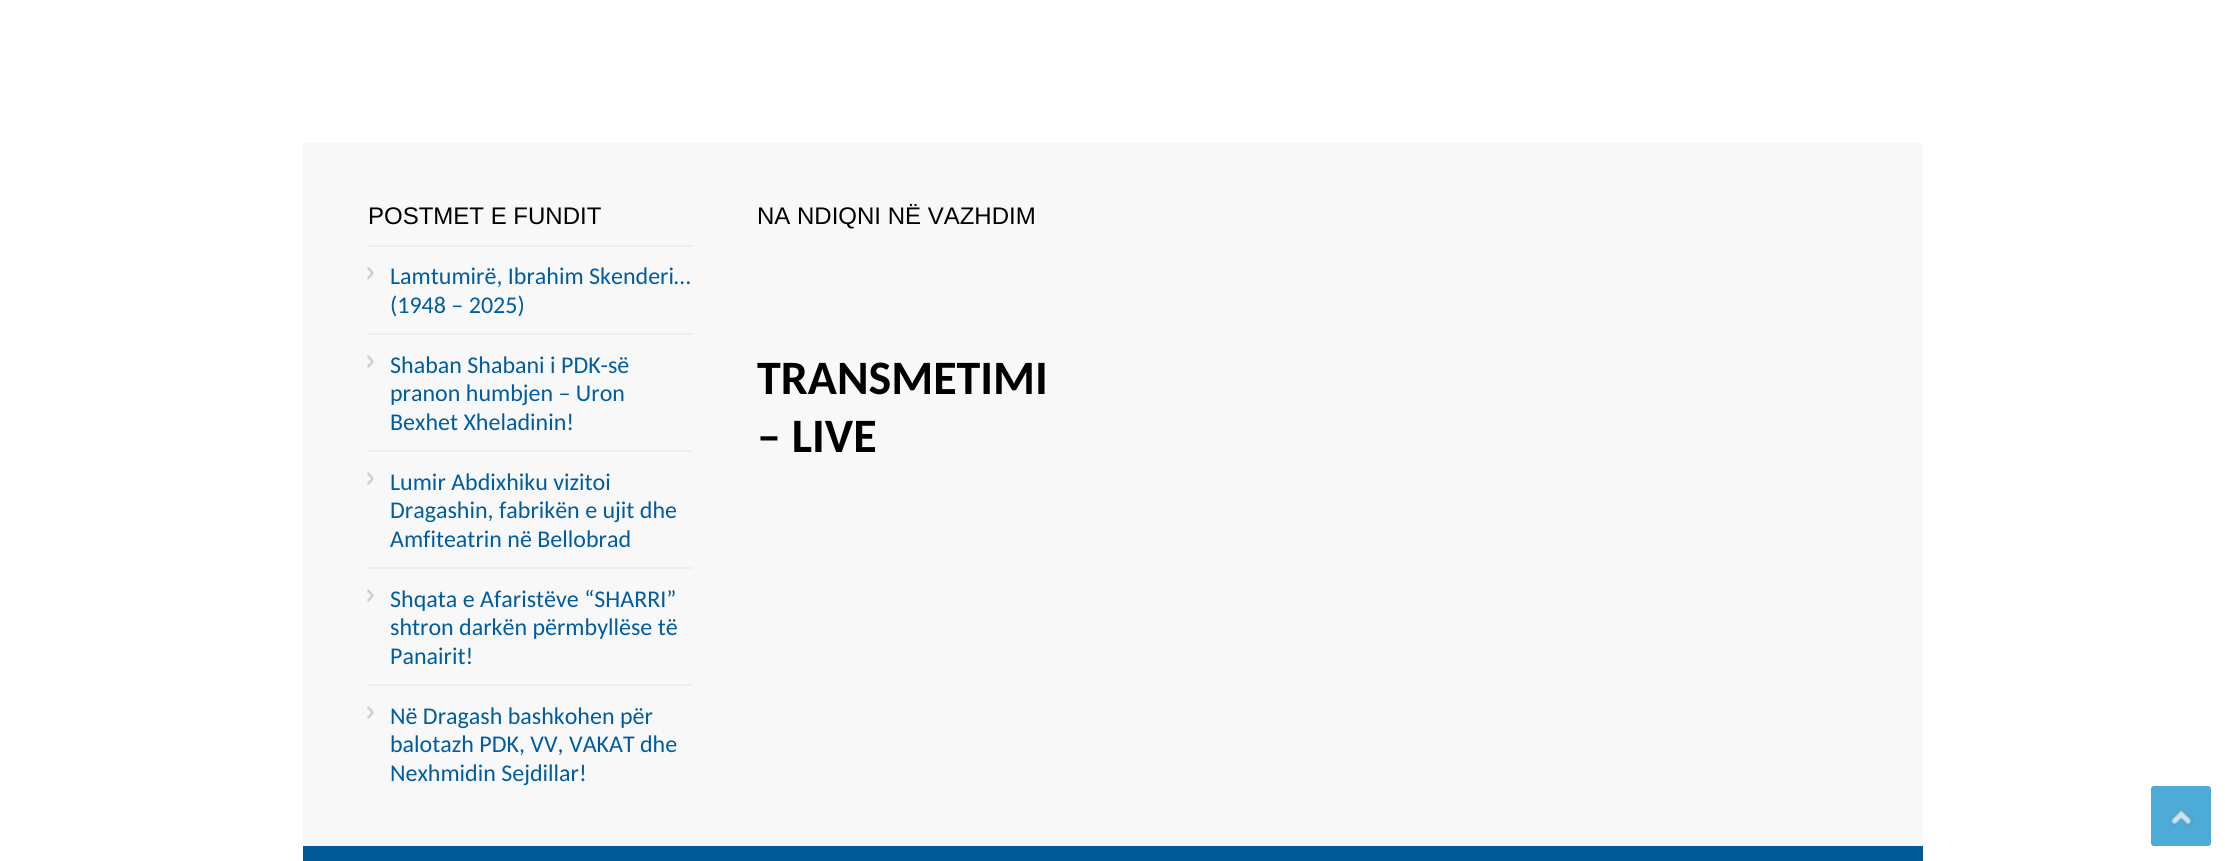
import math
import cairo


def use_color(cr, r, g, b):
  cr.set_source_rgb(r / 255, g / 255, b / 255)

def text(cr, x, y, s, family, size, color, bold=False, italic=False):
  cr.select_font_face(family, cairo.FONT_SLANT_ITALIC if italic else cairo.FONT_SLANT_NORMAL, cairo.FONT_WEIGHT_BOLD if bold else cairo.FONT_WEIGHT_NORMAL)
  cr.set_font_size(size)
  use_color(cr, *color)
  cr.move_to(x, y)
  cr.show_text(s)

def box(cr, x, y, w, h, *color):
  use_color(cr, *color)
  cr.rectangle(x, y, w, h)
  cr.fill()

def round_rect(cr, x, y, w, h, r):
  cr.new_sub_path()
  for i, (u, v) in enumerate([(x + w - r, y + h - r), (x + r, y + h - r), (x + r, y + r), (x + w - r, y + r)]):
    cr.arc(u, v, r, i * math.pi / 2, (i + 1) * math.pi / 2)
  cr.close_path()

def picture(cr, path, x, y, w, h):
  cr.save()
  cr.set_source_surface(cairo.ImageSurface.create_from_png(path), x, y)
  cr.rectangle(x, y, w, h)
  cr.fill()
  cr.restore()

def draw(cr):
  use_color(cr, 255, 255, 255)
  cr.paint()
  box(cr, 303, 143, 1620, 703, 248, 248, 248)
  picture(cr, "img_01.png", 367, 266, 7, 14)
  box(cr, 368, 245, 324, 2, 238, 238, 238)
  picture(cr, "img_02.png", 367, 355, 7, 13)
  box(cr, 368, 333, 324, 2, 238, 238, 238)
  picture(cr, "img_02.png", 367, 472, 7, 13)
  box(cr, 368, 450, 324, 2, 238, 238, 238)
  picture(cr, "img_02.png", 367, 589, 7, 13)
  box(cr, 368, 567, 324, 2, 238, 238, 238)
  picture(cr, "img_02.png", 367, 706, 7, 13)
  box(cr, 368, 684, 324, 2, 238, 238, 238)
  box(cr, 303, 846, 1620, 15, 1, 89, 152)
  use_color(cr, 77, 171, 215)
  round_rect(cr, 2151, 786, 60, 60, 3)
  cr.fill()
  picture(cr, "img_03.png", 2170, 809, 23, 16)
  text(cr, 368, 224, "POSTMET E FUNDIT", "Liberation Sans", 24, (0, 0, 0))
  text(cr, 390, 284, "Lamtumirë, Ibrahim Skenderi…", "Carlito", 24, (0, 92, 161))
  text(cr, 390, 313, "(1948 – 2025)", "Carlito", 24, (0, 92, 161))
  text(cr, 390, 373, "Shaban Shabani i PDK-së", "Carlito", 24, (0, 92, 161))
  text(cr, 390, 401, "pranon humbjen – Uron", "Carlito", 24, (0, 92, 161))
  text(cr, 390, 430, "Bexhet Xheladinin!", "Carlito", 24, (0, 92, 161))
  text(cr, 390, 490, "Lumir Abdixhiku vizitoi", "Carlito", 24, (0, 92, 161))
  text(cr, 390, 518, "Dragashin, fabrikën e ujit dhe", "Carlito", 24, (0, 92, 161))
  text(cr, 390, 547, "Amfiteatrin në Bellobrad", "Carlito", 24, (0, 92, 161))
  text(cr, 390, 607, "Shqata e Afaristëve “SHARRI”", "Carlito", 24, (0, 92, 161))
  text(cr, 390, 635, "shtron darkën përmbyllëse të", "Carlito", 24, (0, 92, 161))
  text(cr, 390, 664, "Panairit!", "Carlito", 24, (0, 92, 161))
  text(cr, 390, 724, "Në Dragash bashkohen për", "Carlito", 24, (0, 92, 161))
  text(cr, 390, 752, "balotazh PDK, VV, VAKAT dhe", "Carlito", 24, (0, 92, 161))
  text(cr, 390, 781, "Nexhmidin Sejdillar!", "Carlito", 24, (0, 92, 161))
  text(cr, 757, 224, "NA NDIQNI NË VAZHDIM", "Liberation Sans", 24, (0, 0, 0))
  text(cr, 757, 394, "TRANSMETIMI", "Carlito", 48, (0, 0, 0), bold=True)
  text(cr, 757, 452, "– LIVE", "Carlito", 48, (0, 0, 0), bold=True)


surface = cairo.ImageSurface(cairo.FORMAT_RGB24, 2225, 861)
cr = cairo.Context(surface)
options = cairo.FontOptions()
options.set_hint_metrics(cairo.HINT_METRICS_OFF)
options.set_hint_style(cairo.HINT_STYLE_NONE)
cr.set_font_options(options)
cr.set_miter_limit(4)
draw(cr)
surface.write_to_png("out.png")
